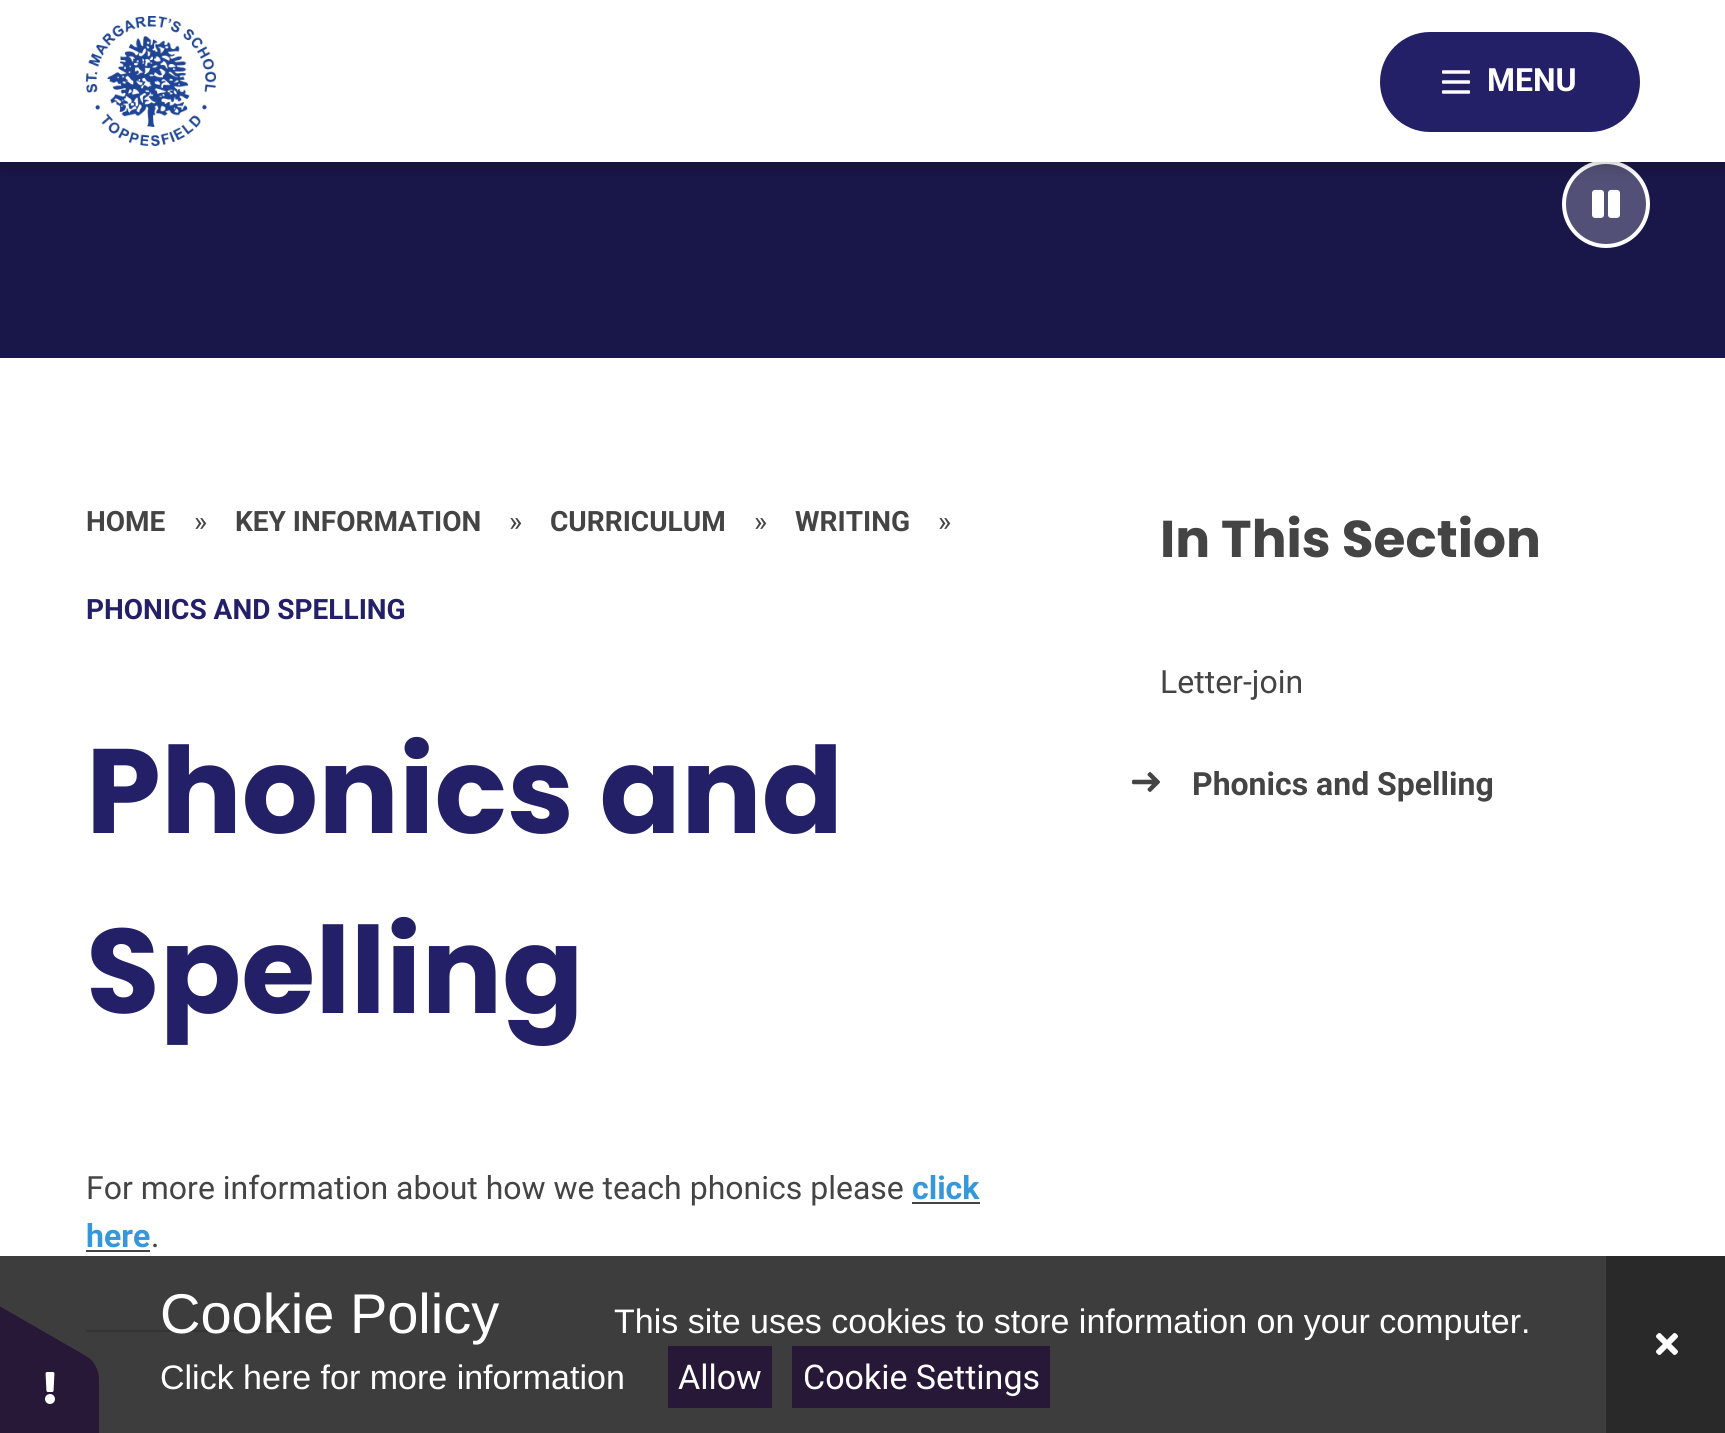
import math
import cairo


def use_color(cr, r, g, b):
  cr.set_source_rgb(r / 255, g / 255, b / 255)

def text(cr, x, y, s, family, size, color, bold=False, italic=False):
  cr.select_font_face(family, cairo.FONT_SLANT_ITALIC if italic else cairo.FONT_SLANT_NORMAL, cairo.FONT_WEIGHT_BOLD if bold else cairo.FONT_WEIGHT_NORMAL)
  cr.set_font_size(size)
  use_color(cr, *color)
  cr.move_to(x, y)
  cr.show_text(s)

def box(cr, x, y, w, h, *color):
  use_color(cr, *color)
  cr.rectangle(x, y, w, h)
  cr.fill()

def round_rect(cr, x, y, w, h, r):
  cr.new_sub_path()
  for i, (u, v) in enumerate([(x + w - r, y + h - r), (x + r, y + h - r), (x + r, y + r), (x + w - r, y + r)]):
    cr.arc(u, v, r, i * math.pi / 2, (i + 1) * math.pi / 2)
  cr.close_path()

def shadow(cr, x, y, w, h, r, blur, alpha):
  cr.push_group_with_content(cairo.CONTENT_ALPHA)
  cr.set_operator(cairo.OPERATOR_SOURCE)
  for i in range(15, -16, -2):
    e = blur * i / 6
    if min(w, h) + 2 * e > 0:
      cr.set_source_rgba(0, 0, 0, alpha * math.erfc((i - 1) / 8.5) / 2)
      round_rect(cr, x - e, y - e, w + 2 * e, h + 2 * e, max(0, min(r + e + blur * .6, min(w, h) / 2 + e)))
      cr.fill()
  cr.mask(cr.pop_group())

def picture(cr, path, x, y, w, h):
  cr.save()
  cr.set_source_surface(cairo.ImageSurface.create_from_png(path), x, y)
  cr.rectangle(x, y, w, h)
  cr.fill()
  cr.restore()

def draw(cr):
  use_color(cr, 255, 255, 255)
  cr.paint()
  box(cr, 0, 1256, 1606, 177, 61, 61, 61)
  box(cr, 0, 162, 1725, 196, 25, 22, 73)
  use_color(cr, 83, 80, 119)
  cr.arc(1606, 204, 42, 0, 2 * math.pi)
  cr.fill_preserve()
  use_color(cr, 255, 255, 255)
  cr.set_line_width(4)
  cr.stroke()
  picture(cr, "img_03.png", 1592, 189, 28, 29)
  use_color(cr, 0, 0, 0)
  shadow(cr, 0, -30, 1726, 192, 0, 10, 0.3)
  box(cr, 0, 0, 1725, 162, 255, 255, 255)
  picture(cr, "img_01.png", 86, 16, 130, 130)
  use_color(cr, 35, 32, 103)
  round_rect(cr, 1380, 32, 260, 100, 50)
  cr.fill()
  picture(cr, "img_02.png", 1442, 70, 28, 24)
  box(cr, 912, 1202, 68, 2, 68, 68, 68)
  box(cr, 86, 1250, 64, 2, 68, 68, 68)
  box(cr, 86, 1330, 198, 2, 52, 52, 52)
  picture(cr, "img_04.png", 1132, 772, 28, 20)
  use_color(cr, 40, 24, 56)
  cr.new_path()
  cr.move_to(99, 1380)
  cr.line_to(99, 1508)
  cr.curve_to(99, 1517, 96, 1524, 91, 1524)
  cr.line_to(-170, 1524)
  cr.curve_to(-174, 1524, -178, 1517, -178, 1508)
  cr.line_to(-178, 1380)
  cr.curve_to(-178, 1371, -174, 1364, -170, 1364)
  cr.line_to(91, 1364)
  cr.curve_to(96, 1364, 99, 1371, 99, 1380)
  cr.close_path()
  cr.fill()
  cr.new_path()
  cr.move_to(-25, 1292)
  cr.line_to(86, 1356)
  cr.curve_to(93, 1360, 98, 1367, 95, 1371)
  cr.line_to(-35, 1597)
  cr.curve_to(-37, 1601, -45, 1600, -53, 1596)
  cr.line_to(-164, 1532)
  cr.curve_to(-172, 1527, -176, 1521, -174, 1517)
  cr.line_to(-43, 1291)
  cr.curve_to(-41, 1287, -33, 1287, -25, 1292)
  cr.close_path()
  cr.fill()
  picture(cr, "img_05.png", 45, 1372, 10, 32)
  box(cr, 668, 1346, 104, 62, 40, 24, 56)
  box(cr, 792, 1346, 258, 62, 40, 24, 56)
  box(cr, 1606, 1256, 119, 177, 41, 41, 41)
  picture(cr, "img_06.png", 1656, 1333, 22, 22)
  text(cr, 1487, 91, "MENU", "Roboto", 32, (255, 255, 255), bold=True)
  text(cr, 86, 531, "HOME", "Roboto", 28, (68, 68, 68), bold=True)
  text(cr, 194, 531, "»", "Roboto", 28, (68, 68, 68))
  text(cr, 235, 531, "KEY INFORMATION", "Roboto", 28, (68, 68, 68), bold=True)
  text(cr, 509, 531, "»", "Roboto", 28, (68, 68, 68))
  text(cr, 550, 531, "CURRICULUM", "Roboto", 28, (68, 68, 68), bold=True)
  text(cr, 754, 531, "»", "Roboto", 28, (68, 68, 68))
  text(cr, 795, 531, "WRITING", "Roboto", 28, (68, 68, 68), bold=True)
  text(cr, 938, 531, "»", "Roboto", 28, (68, 68, 68))
  text(cr, 86, 619, "PHONICS AND SPELLING", "Roboto", 28, (35, 32, 103), bold=True)
  text(cr, 86, 833, "Phonics and", "Poppins", 120, (35, 32, 103), bold=True)
  text(cr, 86, 1013, "Spelling", "Poppins", 120, (35, 32, 103), bold=True)
  text(cr, 86, 1199, "For more information about how we teach phonics please", "Roboto", 32, (68, 68, 68))
  text(cr, 912, 1199, "click", "Roboto", 32, (52, 152, 219), bold=True)
  text(cr, 86, 1247, "here", "Roboto", 32, (52, 152, 219), bold=True)
  text(cr, 151, 1247, ".", "Roboto", 32, (68, 68, 68))
  text(cr, 1160, 557, "In This Section", "Poppins", 51.75, (68, 68, 68), bold=True)
  text(cr, 1160, 693, "Letter-join", "Roboto", 32, (68, 68, 68))
  text(cr, 1192, 795, "Phonics and Spelling", "Roboto", 32, (68, 68, 68), bold=True)
  text(cr, 160, 1333, "Cookie Policy", "Liberation Sans", 56, (255, 255, 255))
  text(cr, 614, 1333, "This site uses cookies to store information on your computer.", "Liberation Sans", 34, (255, 255, 255))
  text(cr, 160, 1389, "Click here for more information", "Liberation Sans", 34, (255, 255, 255))
  text(cr, 678, 1389, "Allow", "Roboto", 34, (255, 255, 255))
  text(cr, 803, 1389, "Cookie Settings", "Roboto", 34, (255, 255, 255))


surface = cairo.ImageSurface(cairo.FORMAT_RGB24, 1725, 1433)
cr = cairo.Context(surface)
options = cairo.FontOptions()
options.set_hint_metrics(cairo.HINT_METRICS_OFF)
options.set_hint_style(cairo.HINT_STYLE_NONE)
cr.set_font_options(options)
cr.set_miter_limit(4)
draw(cr)
surface.write_to_png("out.png")
